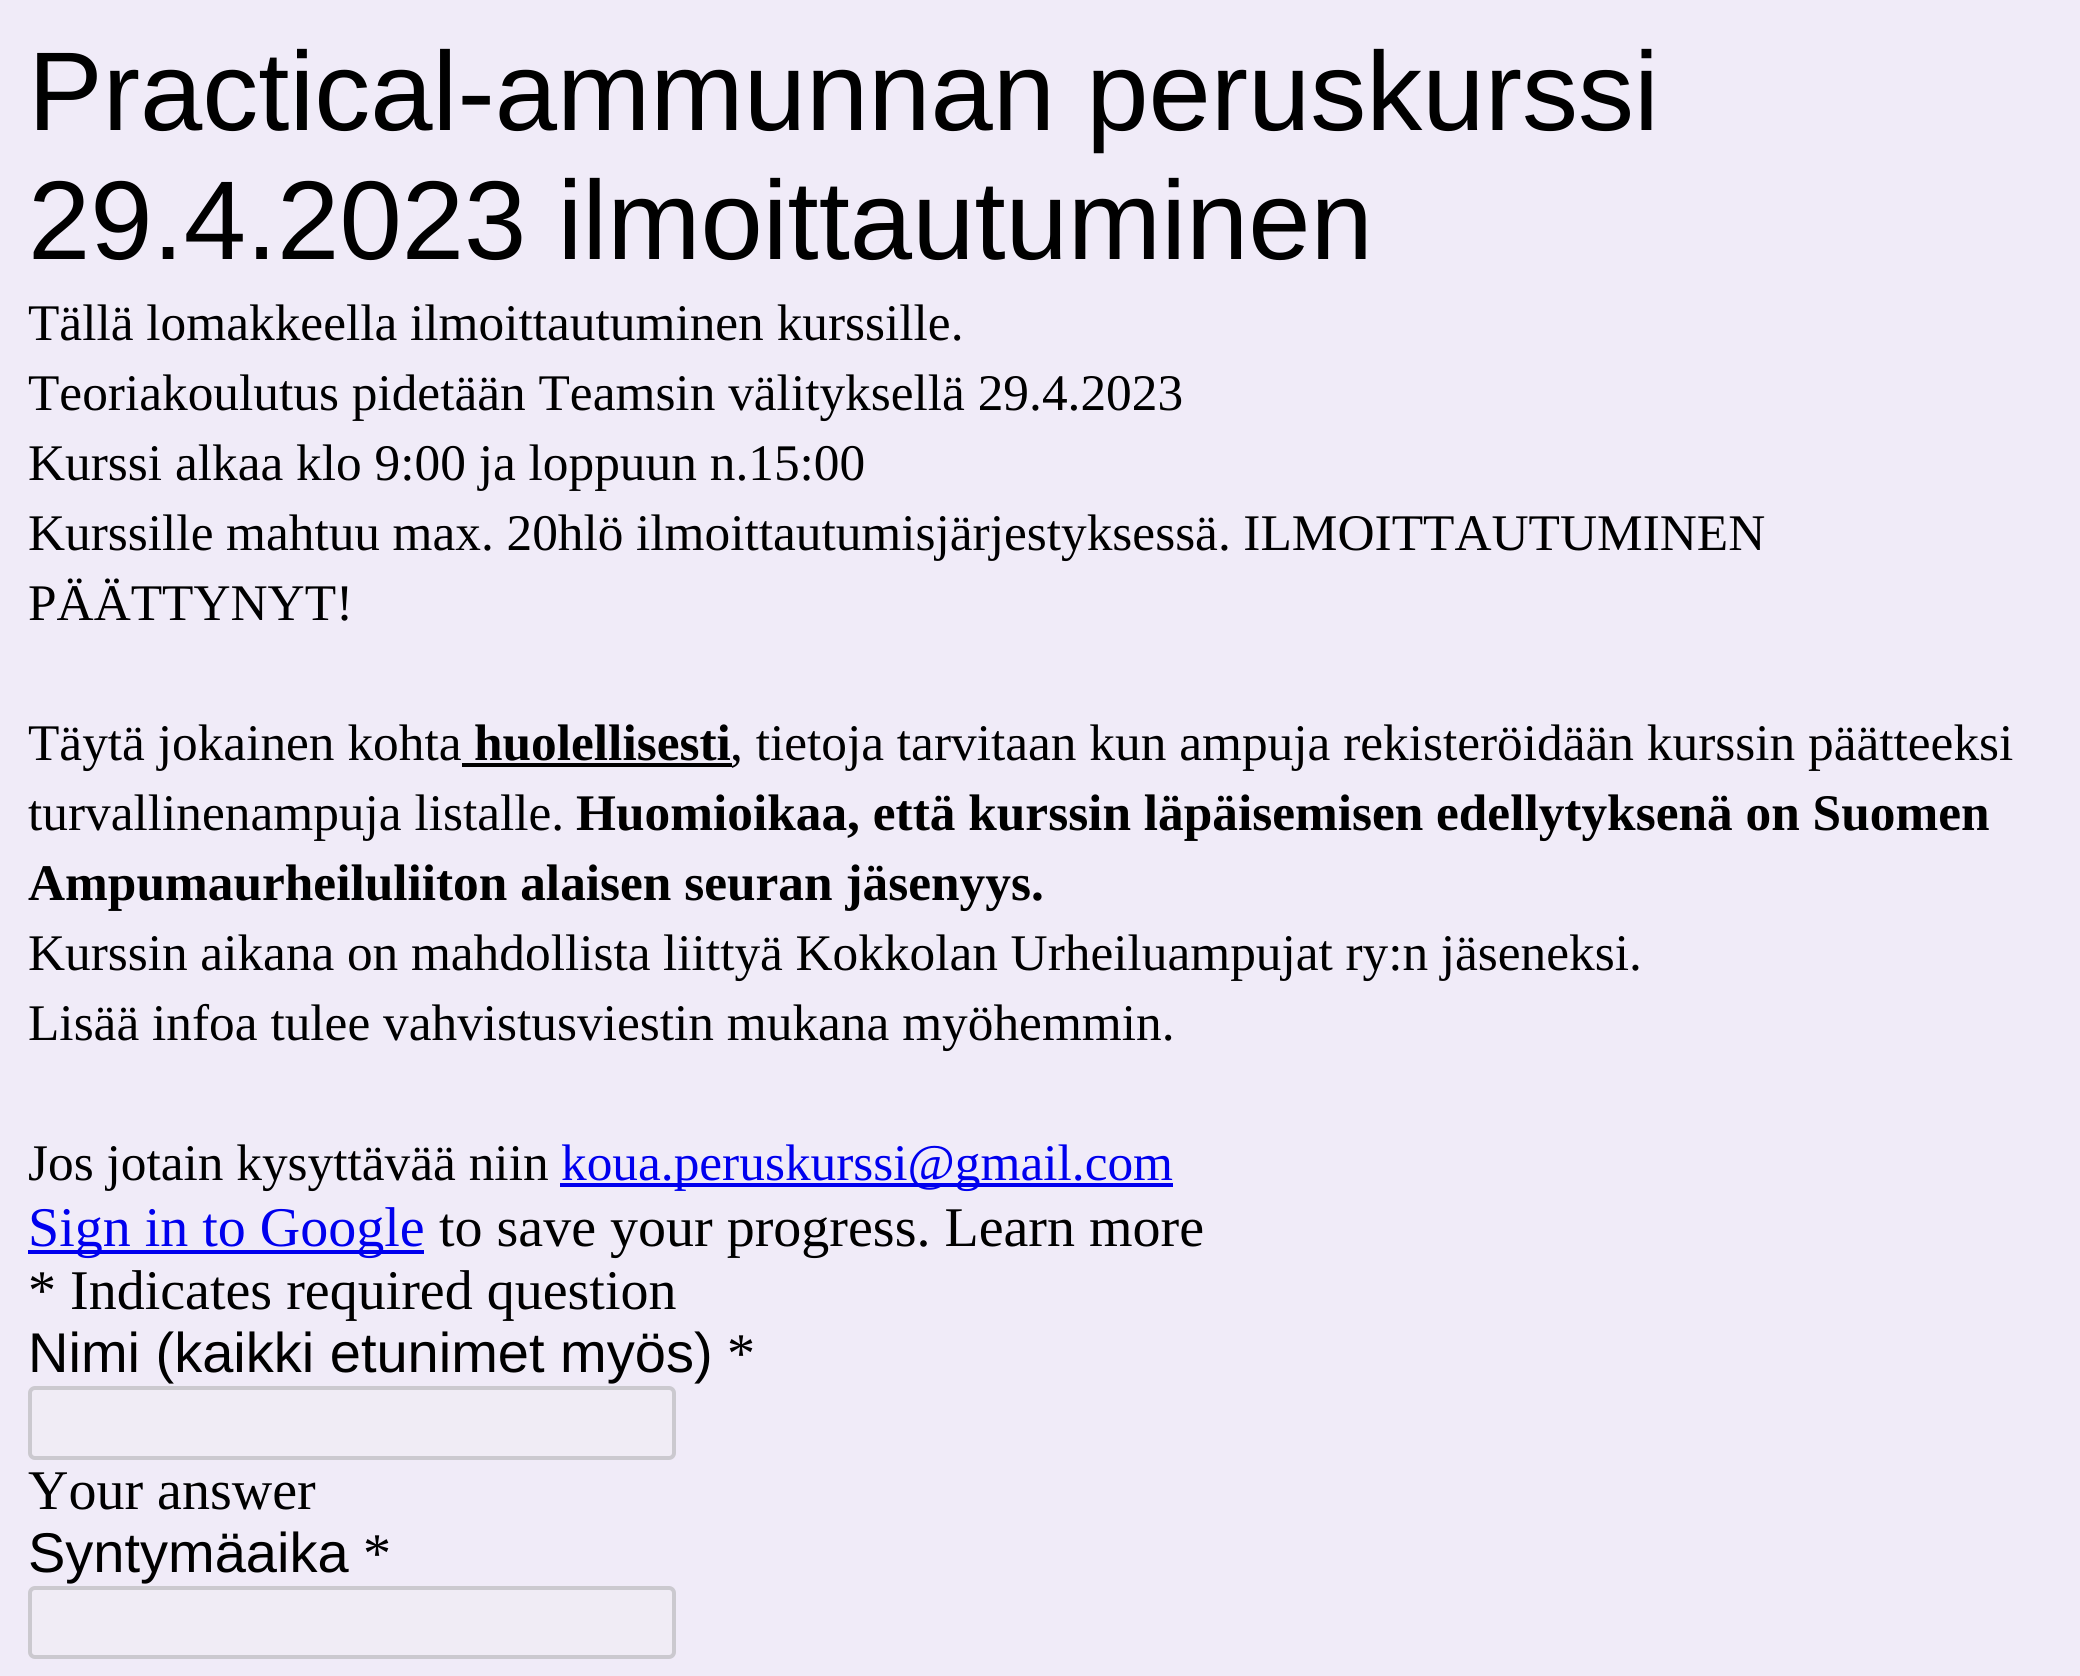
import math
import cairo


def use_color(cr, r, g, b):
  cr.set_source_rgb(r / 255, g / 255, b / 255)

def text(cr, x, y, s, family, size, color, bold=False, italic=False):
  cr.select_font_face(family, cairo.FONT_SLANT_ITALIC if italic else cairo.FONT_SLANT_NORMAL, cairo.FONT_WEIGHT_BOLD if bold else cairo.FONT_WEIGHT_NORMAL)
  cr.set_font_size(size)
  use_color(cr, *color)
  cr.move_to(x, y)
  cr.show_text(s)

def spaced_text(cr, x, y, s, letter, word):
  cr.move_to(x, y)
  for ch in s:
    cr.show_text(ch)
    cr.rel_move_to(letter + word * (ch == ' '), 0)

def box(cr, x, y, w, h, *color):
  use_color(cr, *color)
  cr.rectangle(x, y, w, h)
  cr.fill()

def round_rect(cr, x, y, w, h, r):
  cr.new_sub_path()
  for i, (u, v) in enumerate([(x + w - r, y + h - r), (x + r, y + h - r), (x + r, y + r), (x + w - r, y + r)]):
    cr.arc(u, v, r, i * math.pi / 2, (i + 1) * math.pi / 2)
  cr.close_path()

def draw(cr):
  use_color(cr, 240, 235, 248)
  cr.paint()
  box(cr, 462, 763, 270, 4, 0, 0, 0)
  box(cr, 560, 1183, 613, 4, 0, 0, 238)
  box(cr, 28, 1250, 396, 4, 0, 0, 238)
  use_color(cr, 240, 236, 245)
  round_rect(cr, 30, 1388, 644, 70, 5)
  cr.fill_preserve()
  use_color(cr, 203, 201, 207)
  cr.set_line_width(4)
  cr.stroke()
  use_color(cr, 240, 236, 245)
  round_rect(cr, 30, 1588, 644, 69, 5)
  cr.fill_preserve()
  use_color(cr, 203, 201, 207)
  cr.stroke()
  text(cr, 28, 130, "Practical-ammunnan peruskurssi", "Liberation Sans", 112, (0, 0, 0))
  text(cr, 28, 259, "29.4.2023 ilmoittautuminen", "Liberation Sans", 112, (0, 0, 0))
  text(cr, 28, 340, "Tällä lomakkeella ilmoittautuminen kurssille.", "Liberation Serif", 51.35, (0, 0, 0))
  text(cr, 28, 410, "Teoriakoulutus pidetään Teamsin välityksellä 29.4.2023", "Liberation Serif", 51.35, (0, 0, 0))
  text(cr, 28, 480, "Kurssi alkaa klo 9:00 ja loppuun n.15:00", "Liberation Serif", 51.35, (0, 0, 0))
  spaced_text(cr, 28, 550, "Kurssille mahtuu max. 20hlö ilmoittautumisjärjestyksessä. ILMOITTAUTUMINEN", 0, -0.25)
  text(cr, 28, 620, "PÄÄTTYNYT!", "Liberation Serif", 51.35, (0, 0, 0))
  text(cr, 28, 760, "Täytä jokainen kohta", "Liberation Serif", 51.35, (0, 0, 0))
  text(cr, 474, 760, "huolellisesti", "Liberation Serif", 51.35, (0, 0, 0), bold=True)
  text(cr, 730, 760, ", tietoja tarvitaan kun ampuja rekisteröidään kurssin päätteeksi", "Liberation Serif", 51.35, (0, 0, 0))
  text(cr, 28, 830, "turvallinenampuja listalle.", "Liberation Serif", 51.35, (0, 0, 0))
  text(cr, 576, 830, "Huomioikaa, että kurssin läpäisemisen", "Liberation Serif", 51.35, (0, 0, 0), bold=True)
  text(cr, 1436, 830, "edellytyksenä on Suomen", "Liberation Serif", 51.35, (0, 0, 0), bold=True)
  text(cr, 28, 900, "Ampumaurheiluliiton alaisen seuran jäsenyys.", "Liberation Serif", 51.35, (0, 0, 0), bold=True)
  cr.select_font_face("Liberation Serif")
  spaced_text(cr, 28, 970, "Kurssin aikana on mahdollista liittyä Kokkolan Urheiluampujat ry:n jäseneksi.", 0, -0.25)
  text(cr, 28, 1040, "Lisää infoa tulee vahvistusviestin mukana myöhemmin.", "Liberation Serif", 51.35, (0, 0, 0))
  text(cr, 28, 1180, "Jos jotain kysyttävää niin", "Liberation Serif", 51.35, (0, 0, 0))
  text(cr, 561, 1180, "koua.peruskurssi@gmail.com", "Liberation Serif", 51.35, (0, 0, 238))
  text(cr, 28, 1246, "Sign in to Google", "Liberation Serif", 56, (0, 0, 238))
  text(cr, 439, 1246, "to save your progress. Learn more", "Liberation Serif", 56, (0, 0, 0))
  text(cr, 28, 1309, "* Indicates required question", "Liberation Serif", 56, (0, 0, 0))
  text(cr, 28, 1372, "Nimi (kaikki etunimet myös)", "Liberation Sans", 56, (0, 0, 0))
  text(cr, 727, 1372, "*", "Liberation Serif", 56, (0, 0, 0))
  text(cr, 28, 1509, "Your answer", "Liberation Serif", 56, (0, 0, 0))
  text(cr, 28, 1572, "Syntymäaika", "Liberation Sans", 56, (0, 0, 0))
  text(cr, 363, 1572, "*", "Liberation Serif", 56, (0, 0, 0))


surface = cairo.ImageSurface(cairo.FORMAT_RGB24, 2080, 1676)
cr = cairo.Context(surface)
options = cairo.FontOptions()
options.set_hint_metrics(cairo.HINT_METRICS_OFF)
options.set_hint_style(cairo.HINT_STYLE_NONE)
cr.set_font_options(options)
cr.set_miter_limit(4)
draw(cr)
surface.write_to_png("out.png")
